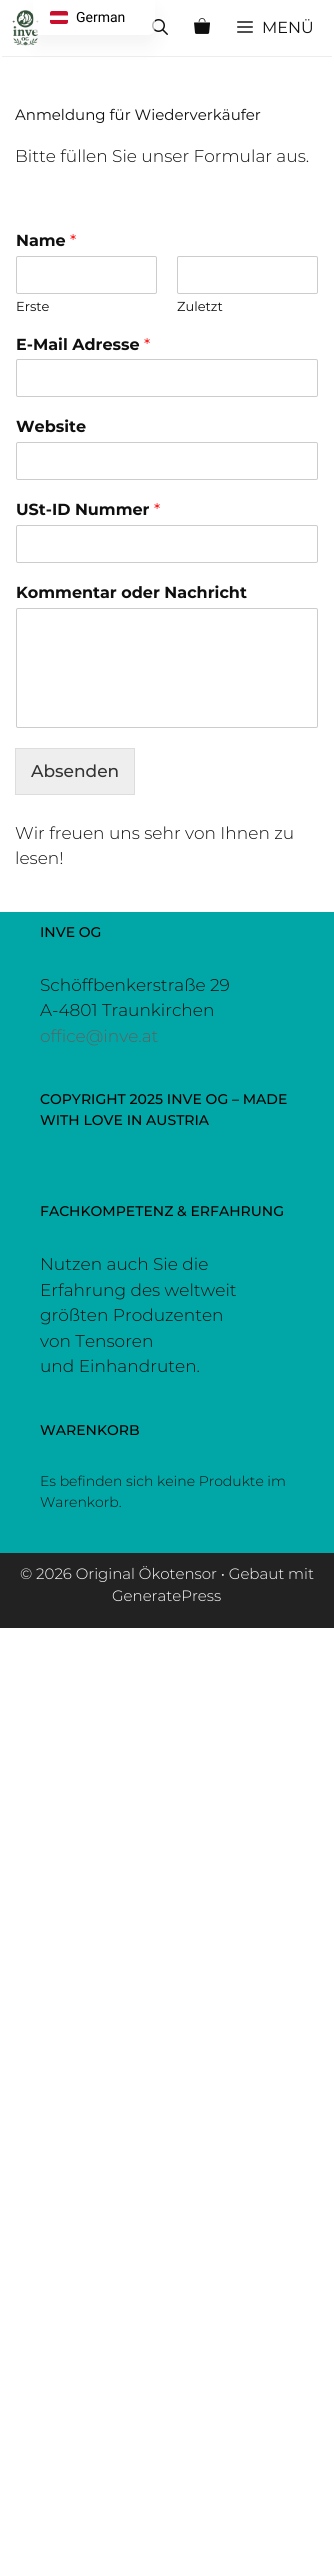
import math
import cairo


def use_color(cr, r, g, b):
  cr.set_source_rgb(r / 255, g / 255, b / 255)

def text(cr, x, y, s, family, size, color, bold=False, italic=False):
  cr.select_font_face(family, cairo.FONT_SLANT_ITALIC if italic else cairo.FONT_SLANT_NORMAL, cairo.FONT_WEIGHT_BOLD if bold else cairo.FONT_WEIGHT_NORMAL)
  cr.set_font_size(size)
  use_color(cr, *color)
  cr.move_to(x, y)
  cr.show_text(s)

def box(cr, x, y, w, h, *color):
  use_color(cr, *color)
  cr.rectangle(x, y, w, h)
  cr.fill()

def round_rect(cr, x, y, w, h, r):
  cr.new_sub_path()
  for i, (u, v) in enumerate([(x + w - r, y + h - r), (x + r, y + h - r), (x + r, y + r), (x + w - r, y + r)]):
    cr.arc(u, v, r, i * math.pi / 2, (i + 1) * math.pi / 2)
  cr.close_path()

def shadow(cr, x, y, w, h, r, blur, alpha):
  cr.push_group_with_content(cairo.CONTENT_ALPHA)
  cr.set_operator(cairo.OPERATOR_SOURCE)
  for i in range(15, -16, -2):
    e = blur * i / 6
    if min(w, h) + 2 * e > 0:
      cr.set_source_rgba(0, 0, 0, alpha * math.erfc((i - 1) / 8.5) / 2)
      round_rect(cr, x - e, y - e, w + 2 * e, h + 2 * e, max(0, min(r + e + blur * .6, min(w, h) / 2 + e)))
      cr.fill()
  cr.mask(cr.pop_group())

def picture(cr, path, x, y, w, h):
  cr.save()
  cr.set_source_surface(cairo.ImageSurface.create_from_png(path), x, y)
  cr.rectangle(x, y, w, h)
  cr.fill()
  cr.restore()

def draw(cr):
  use_color(cr, 255, 255, 255)
  cr.paint()
  cr.save()
  cr.rectangle(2, 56, 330, 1)
  cr.clip()
  use_color(cr, 0, 0, 0)
  shadow(cr, 2, 4, 330, 52, 0, 1, 0.2)
  cr.restore()
  picture(cr, "img_02.png", 12, 10, 27, 36)
  picture(cr, "img_03.png", 152, 19, 16, 16)
  cr.save()
  cr.set_fill_rule(cairo.FILL_RULE_EVEN_ODD)
  cr.new_path()
  cr.move_to(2, 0)
  cr.line_to(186, 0)
  cr.line_to(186, 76)
  cr.line_to(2, 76)
  cr.close_path()
  cr.move_to(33, 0)
  cr.line_to(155, 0)
  cr.line_to(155, 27)
  cr.curve_to(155, 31.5, 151.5, 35, 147, 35)
  cr.line_to(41, 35)
  cr.curve_to(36.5, 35, 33, 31.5, 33, 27)
  cr.close_path()
  cr.clip()
  use_color(cr, 0, 0, 0)
  shadow(cr, 33, 10, 122, 35, 8, 10, 0.05)
  cr.restore()
  cr.set_source_rgba(1, 1, 1, 0.7)
  cr.new_path()
  cr.move_to(33, 0)
  cr.line_to(155, 0)
  cr.line_to(155, 27)
  cr.curve_to(155, 31.5, 151.5, 35, 147, 35)
  cr.line_to(41, 35)
  cr.curve_to(36.5, 35, 33, 31.5, 33, 27)
  cr.close_path()
  cr.fill()
  picture(cr, "img_01.png", 50, 11, 18, 13)
  picture(cr, "img_04.png", 194, 18, 16, 16)
  picture(cr, "img_05.png", 237, 21, 16, 12)
  round_rect(cr, 16.5, 256.5, 140, 37, 1.5)
  use_color(cr, 204, 204, 204)
  cr.set_line_width(1)
  cr.stroke()
  round_rect(cr, 177.5, 256.5, 140, 37, 1.5)
  cr.stroke()
  round_rect(cr, 16.5, 359.5, 301, 37, 1.5)
  cr.stroke()
  round_rect(cr, 16.5, 442.5, 301, 37, 1.5)
  cr.stroke()
  round_rect(cr, 16.5, 525.5, 301, 37, 1.5)
  cr.stroke()
  round_rect(cr, 16.5, 608.5, 301, 119, 1.5)
  cr.stroke()
  use_color(cr, 238, 238, 238)
  cr.rectangle(15.5, 748.5, 119, 46)
  cr.fill_preserve()
  use_color(cr, 221, 221, 221)
  cr.stroke()
  box(cr, 0, 912, 334, 641, 0, 167, 166)
  box(cr, 0, 1553, 334, 75, 34, 34, 34)
  text(cr, 76, 22, "German", "Roboto", 14, (0, 0, 0))
  text(cr, 262, 33, "MENÜ", "Montserrat", 16, (15, 15, 15))
  text(cr, 15, 120, "Anmeldung für Wiederverkäufer", "Montserrat", 15, (15, 15, 15))
  text(cr, 15, 162, "Bitte füllen Sie unser Formular aus.", "Montserrat Light", 17, (15, 15, 15))
  text(cr, 16, 246, "Name", "Montserrat", 16, (15, 15, 15), bold=True)
  text(cr, 70, 246, "*", "Montserrat", 16, (255, 0, 0))
  text(cr, 16, 311, "Erste", "Montserrat", 13, (15, 15, 15))
  text(cr, 177, 311, "Zuletzt", "Montserrat", 13, (15, 15, 15))
  text(cr, 16, 350, "E-Mail Adresse", "Montserrat", 16, (15, 15, 15), bold=True)
  text(cr, 144, 350, "*", "Montserrat", 16, (255, 0, 0))
  text(cr, 16, 432, "Website", "Montserrat", 16, (15, 15, 15), bold=True)
  text(cr, 16, 515, "USt-ID Nummer", "Montserrat", 16, (15, 15, 15), bold=True)
  text(cr, 154, 515, "*", "Montserrat", 16, (255, 0, 0))
  text(cr, 16, 598, "Kommentar oder Nachricht", "Montserrat", 16, (15, 15, 15), bold=True)
  text(cr, 31, 777, "Absenden", "Montserrat Medium", 17, (51, 51, 51))
  text(cr, 15, 839, "Wir freuen uns sehr von Ihnen zu", "Montserrat Light", 17, (15, 15, 15))
  text(cr, 15, 864, "lesen!", "Montserrat Light", 17, (15, 15, 15))
  text(cr, 40, 937, "INVE OG", "Montserrat Medium", 14, (0, 0, 0))
  text(cr, 40, 991, "Schöffbenkerstraße 29", "Montserrat Light", 17, (15, 15, 15))
  text(cr, 40, 1016, "A-4801 Traunkirchen", "Montserrat Light", 17, (15, 15, 15))
  text(cr, 40, 1042, "office@inve.at", "Montserrat Light", 17, (96, 96, 96))
  text(cr, 40, 1104, "COPYRIGHT 2025 INVE OG – MADE", "Montserrat Medium", 14, (0, 0, 0))
  text(cr, 40, 1125, "WITH LOVE IN AUSTRIA", "Montserrat Medium", 14, (0, 0, 0))
  text(cr, 40, 1216, "FACHKOMPETENZ & ERFAHRUNG", "Montserrat Medium", 14, (0, 0, 0))
  text(cr, 40, 1270, "Nutzen auch Sie die", "Montserrat Light", 17, (15, 15, 15))
  text(cr, 40, 1296, "Erfahrung des weltweit", "Montserrat Light", 17, (15, 15, 15))
  text(cr, 40, 1321, "größten Produzenten", "Montserrat Light", 17, (15, 15, 15))
  text(cr, 40, 1347, "von Tensoren", "Montserrat Light", 17, (15, 15, 15))
  text(cr, 40, 1372, "und Einhandruten.", "Montserrat Light", 17, (15, 15, 15))
  text(cr, 40, 1435, "WARENKORB", "Montserrat Medium", 14, (0, 0, 0))
  text(cr, 40, 1486, "Es befinden sich keine Produkte im", "Montserrat Light", 14, (15, 15, 15))
  text(cr, 40, 1507, "Warenkorb.", "Montserrat Light", 14, (15, 15, 15))
  text(cr, 20, 1579, "© 2026 Original Ökotensor • Gebaut mit", "Montserrat Light", 15, (255, 255, 255))
  text(cr, 112, 1601, "GeneratePress", "Montserrat Light", 15, (255, 255, 255))


surface = cairo.ImageSurface(cairo.FORMAT_RGB24, 334, 2556)
cr = cairo.Context(surface)
options = cairo.FontOptions()
options.set_hint_metrics(cairo.HINT_METRICS_OFF)
options.set_hint_style(cairo.HINT_STYLE_NONE)
cr.set_font_options(options)
cr.set_miter_limit(4)
draw(cr)
surface.write_to_png("out.png")
